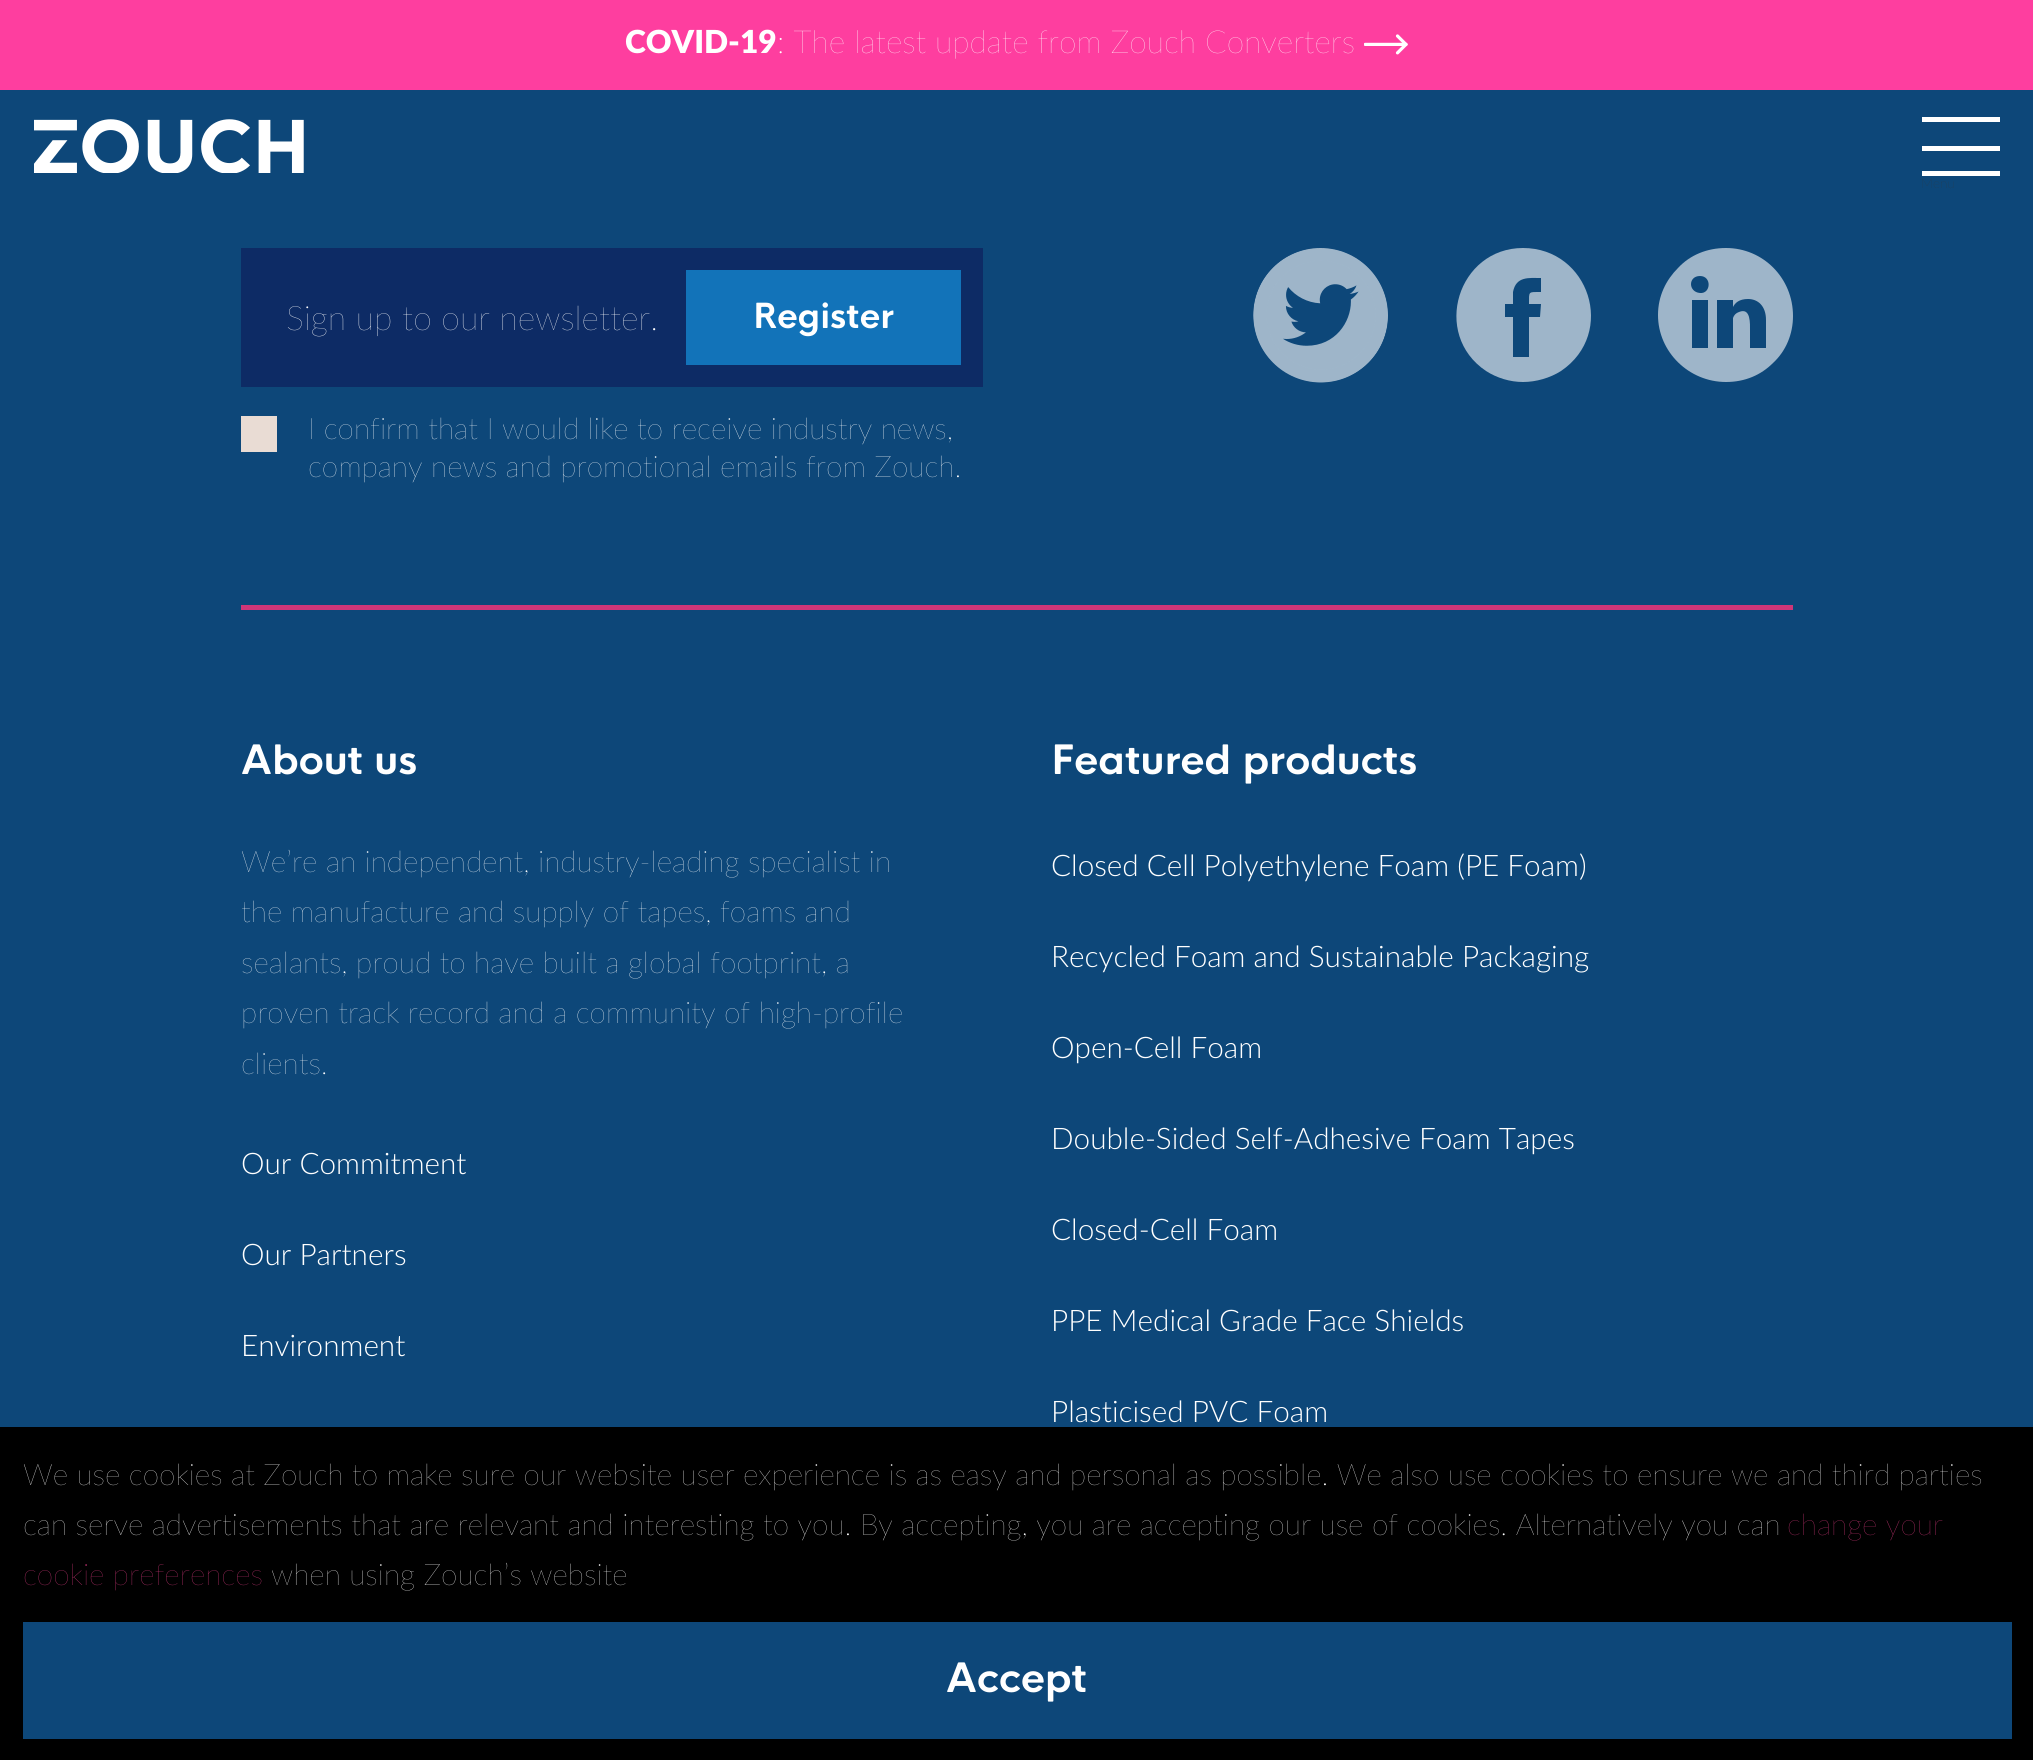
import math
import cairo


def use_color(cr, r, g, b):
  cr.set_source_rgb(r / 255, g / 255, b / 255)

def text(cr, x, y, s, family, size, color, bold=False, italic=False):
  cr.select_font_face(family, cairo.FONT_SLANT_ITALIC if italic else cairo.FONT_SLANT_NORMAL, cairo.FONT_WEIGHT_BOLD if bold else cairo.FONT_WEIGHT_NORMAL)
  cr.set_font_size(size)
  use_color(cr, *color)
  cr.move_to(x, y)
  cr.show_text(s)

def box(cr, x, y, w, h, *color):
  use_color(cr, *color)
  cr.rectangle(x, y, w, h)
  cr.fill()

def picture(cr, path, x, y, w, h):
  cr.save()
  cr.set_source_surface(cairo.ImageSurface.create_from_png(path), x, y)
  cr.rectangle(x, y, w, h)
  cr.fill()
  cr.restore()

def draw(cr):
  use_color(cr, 13, 71, 121)
  cr.paint()
  box(cr, 0, 0, 2033, 90, 254, 62, 159)
  picture(cr, "img_01.png", 1364, 34, 44, 21)
  picture(cr, "img_02.png", 34, 119, 270, 54)
  box(cr, 1922, 117, 78, 5, 255, 255, 255)
  box(cr, 1922, 171, 78, 5, 255, 255, 255)
  box(cr, 1922, 146, 78, 5, 255, 255, 255)
  box(cr, 241, 248, 742, 139, 13, 43, 101)
  box(cr, 686, 270, 275, 95, 18, 115, 185)
  box(cr, 241, 416, 36, 36, 233, 220, 212)
  picture(cr, "img_03.png", 1253, 248, 135, 135)
  use_color(cr, 158, 181, 201)
  cr.set_fill_rule(cairo.FILL_RULE_EVEN_ODD)
  cr.new_path()
  cr.move_to(1523, 248)
  cr.curve_to(1458, 248, 1431, 334, 1486, 371)
  cr.curve_to(1497, 378, 1510, 382, 1523, 382)
  cr.curve_to(1536, 382, 1550, 378, 1561, 371)
  cr.curve_to(1617, 333, 1589, 248, 1523, 248)
  cr.close_path()
  cr.move_to(1540, 317)
  cr.line_to(1541, 304)
  cr.line_to(1529, 304)
  cr.curve_to(1529, 291, 1528, 292, 1541, 292)
  cr.line_to(1541, 278)
  cr.curve_to(1529, 278, 1516, 276, 1513, 292)
  cr.line_to(1513, 304)
  cr.line_to(1505, 304)
  cr.line_to(1505, 317)
  cr.line_to(1513, 317)
  cr.line_to(1513, 357)
  cr.line_to(1529, 357)
  cr.line_to(1529, 317)
  cr.close_path()
  cr.fill()
  cr.set_fill_rule(cairo.FILL_RULE_WINDING)
  cr.new_path()
  cr.move_to(1726, 248)
  cr.curve_to(1763, 248, 1793, 278, 1793, 316)
  cr.curve_to(1793, 334, 1786, 351, 1773, 363)
  cr.curve_to(1761, 375, 1745, 382, 1726, 382)
  cr.curve_to(1689, 382, 1658, 352, 1658, 315)
  cr.curve_to(1658, 296, 1666, 280, 1678, 268)
  cr.curve_to(1690, 255, 1707, 248, 1726, 248)
  cr.close_path()
  cr.fill()
  use_color(cr, 13, 71, 121)
  cr.new_path()
  cr.move_to(1766, 320)
  cr.line_to(1766, 348)
  cr.line_to(1750, 348)
  cr.line_to(1750, 331)
  cr.curve_to(1750, 324, 1751, 307, 1739, 312)
  cr.curve_to(1736, 313, 1734, 315, 1733, 318)
  cr.line_to(1733, 348)
  cr.line_to(1717, 348)
  cr.line_to(1717, 300)
  cr.line_to(1733, 300)
  cr.line_to(1733, 307)
  cr.curve_to(1735, 303, 1739, 299, 1748, 299)
  cr.curve_to(1758, 299, 1766, 306, 1766, 320)
  cr.close_path()
  cr.move_to(1700, 276)
  cr.curve_to(1688, 276, 1688, 292, 1700, 293)
  cr.curve_to(1711, 294, 1712, 276, 1700, 276)
  cr.close_path()
  cr.move_to(1692, 348)
  cr.line_to(1708, 348)
  cr.line_to(1708, 300)
  cr.line_to(1692, 300)
  cr.close_path()
  cr.fill()
  box(cr, 241, 605, 1552, 5, 207, 54, 120)
  box(cr, 0, 1427, 2033, 333, 0, 0, 0)
  box(cr, 23, 1622, 1989, 117, 13, 71, 121)
  text(cr, 625, 53, "COVID-19", "Lato ExtraBold", 31.7, (255, 255, 255))
  text(cr, 777, 53, ": The latest update from Zouch Converters", "Lato ExtraLight", 31.7, (255, 255, 255))
  text(cr, 1921, 188, "Menu", "Lato ExtraLight", 13.5, (52, 52, 50))
  text(cr, 286, 330, "Sign up to our newsletter.", "Lato ExtraLight", 33.75, (255, 255, 255))
  text(cr, 753, 328, "Register", "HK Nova", 33.75, (255, 255, 255), bold=True)
  text(cr, 308, 439, "I confirm that I would like to receive industry news,", "Lato ExtraLight", 29.7, (255, 255, 255))
  text(cr, 308, 477, "company news and promotional emails from Zouch.", "Lato ExtraLight", 29.7, (255, 255, 255))
  text(cr, 241, 774, "About us", "HK Nova", 39.5, (255, 255, 255), bold=True)
  text(cr, 241, 872, "We’re an independent, industry-leading specialist in", "Lato ExtraLight", 29.7, (255, 255, 255))
  text(cr, 241, 922, "the manufacture and supply of tapes, foams and", "Lato ExtraLight", 29.7, (255, 255, 255))
  text(cr, 241, 973, "sealants, proud to have built a global footprint, a", "Lato ExtraLight", 29.7, (255, 255, 255))
  text(cr, 241, 1023, "proven track record and a community of high-profile", "Lato ExtraLight", 29.7, (255, 255, 255))
  text(cr, 241, 1074, "clients.", "Lato ExtraLight", 29.7, (255, 255, 255))
  text(cr, 241, 1174, "Our Commitment", "Lato Light", 29.7, (255, 255, 255))
  text(cr, 241, 1265, "Our Partners", "Lato Light", 29.7, (255, 255, 255))
  text(cr, 241, 1356, "Environment", "Lato Light", 29.7, (255, 255, 255))
  text(cr, 1051, 774, "Featured products", "HK Nova", 39.5, (255, 255, 255), bold=True)
  text(cr, 1051, 876, "Closed Cell Polyethylene Foam (PE Foam)", "Lato Light", 29.7, (255, 255, 255))
  text(cr, 1051, 967, "Recycled Foam and Sustainable Packaging", "Lato Light", 29.7, (255, 255, 255))
  text(cr, 1051, 1058, "Open-Cell Foam", "Lato Light", 29.7, (255, 255, 255))
  text(cr, 1051, 1149, "Double-Sided Self-Adhesive Foam Tapes", "Lato Light", 29.7, (255, 255, 255))
  text(cr, 1051, 1240, "Closed-Cell Foam", "Lato Light", 29.7, (255, 255, 255))
  text(cr, 1051, 1331, "PPE Medical Grade Face Shields", "Lato Light", 29.7, (255, 255, 255))
  text(cr, 1051, 1422, "Plasticised PVC Foam", "Lato Light", 29.7, (255, 255, 255))
  text(cr, 23, 1485, "We use cookies at Zouch to make sure our website user experience is as easy and personal as possible. We also use cookies to ensure we and third parties", "Lato ExtraLight", 29.7, (255, 255, 255))
  text(cr, 23, 1535, "can serve advertisements that are relevant and interesting to you. By accepting, you are accepting our use of cookies. Alternatively you can", "Lato ExtraLight", 29.7, (255, 255, 255))
  text(cr, 1787, 1535, "change your", "Lato ExtraLight", 29.7, (207, 54, 120))
  text(cr, 23, 1585, "cookie preferences", "Lato ExtraLight", 29.7, (207, 54, 120))
  text(cr, 271, 1585, "when using Zouch’s website", "Lato ExtraLight", 29.7, (255, 255, 255))
  text(cr, 946, 1692, "Accept", "HK Nova", 39.5, (255, 255, 255), bold=True)


surface = cairo.ImageSurface(cairo.FORMAT_RGB24, 2033, 1760)
cr = cairo.Context(surface)
options = cairo.FontOptions()
options.set_hint_metrics(cairo.HINT_METRICS_OFF)
options.set_hint_style(cairo.HINT_STYLE_NONE)
cr.set_font_options(options)
cr.set_miter_limit(4)
draw(cr)
surface.write_to_png("out.png")
